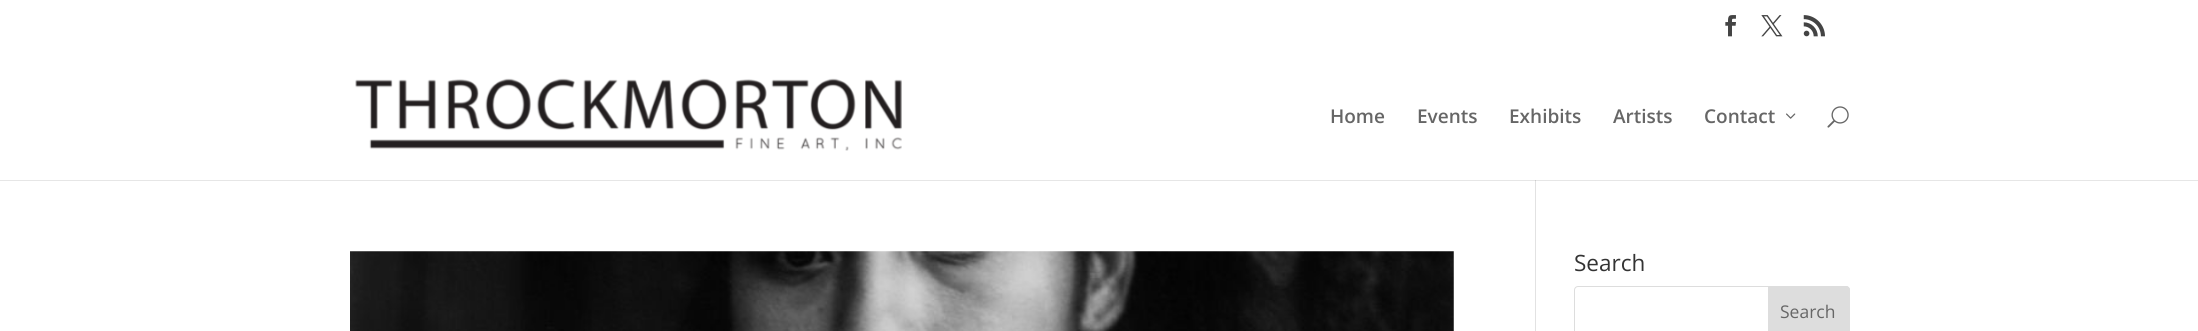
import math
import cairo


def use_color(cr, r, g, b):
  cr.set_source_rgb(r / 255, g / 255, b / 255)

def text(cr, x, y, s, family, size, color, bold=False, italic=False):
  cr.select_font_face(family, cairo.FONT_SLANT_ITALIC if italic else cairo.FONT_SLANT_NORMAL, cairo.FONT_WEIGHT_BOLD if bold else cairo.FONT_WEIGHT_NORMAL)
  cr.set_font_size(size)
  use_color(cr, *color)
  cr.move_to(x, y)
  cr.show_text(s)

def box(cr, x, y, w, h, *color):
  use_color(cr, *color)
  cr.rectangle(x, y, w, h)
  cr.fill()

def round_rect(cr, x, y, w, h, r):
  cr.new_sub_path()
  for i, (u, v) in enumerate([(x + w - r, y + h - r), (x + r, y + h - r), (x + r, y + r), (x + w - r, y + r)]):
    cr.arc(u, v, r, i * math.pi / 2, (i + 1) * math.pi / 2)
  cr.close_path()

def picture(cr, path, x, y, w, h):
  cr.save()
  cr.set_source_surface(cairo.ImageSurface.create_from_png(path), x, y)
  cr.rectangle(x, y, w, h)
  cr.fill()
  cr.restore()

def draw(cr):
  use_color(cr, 255, 255, 255)
  cr.paint()
  picture(cr, "img_01.png", 1725, 15, 11, 22)
  picture(cr, "img_02.png", 1761, 15, 22, 22)
  picture(cr, "img_03.png", 1803, 15, 22, 22)
  box(cr, 1535, 179, 1, 152, 226, 226, 226)
  cr.set_source_rgba(0, 0, 0, 0.1)
  cr.new_path()
  cr.move_to(0, 180)
  cr.line_to(0, 181)
  cr.line_to(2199, 181)
  cr.line_to(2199, 51)
  cr.line_to(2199, 180)
  cr.close_path()
  cr.fill()
  box(cr, 1535, 179, 1, 1, 255, 255, 255)
  picture(cr, "img_04.png", 355, 78, 547, 73)
  picture(cr, "img_05.png", 1786, 113, 10, 6)
  picture(cr, "img_06.png", 1827, 106, 22, 22)
  picture(cr, "img_07.png", 350, 251, 1104, 80)
  round_rect(cr, 1574.5, 286.5, 275, 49, 3.5)
  use_color(cr, 221, 221, 221)
  cr.set_line_width(1)
  cr.stroke()
  cr.new_path()
  cr.move_to(1768.5, 286.5)
  cr.line_to(1846, 286.5)
  cr.curve_to(1848, 286.5, 1849.5, 288, 1849.5, 290)
  cr.line_to(1849.5, 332)
  cr.curve_to(1849.5, 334, 1848, 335.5, 1846, 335.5)
  cr.line_to(1768.5, 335.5)
  cr.close_path()
  cr.fill_preserve()
  cr.stroke()
  text(cr, 1330, 123, "Home", "Open Sans SemiBold", 19, (102, 102, 102))
  text(cr, 1417, 123, "Events", "Open Sans SemiBold", 19, (102, 102, 102))
  text(cr, 1509, 123, "Exhibits", "Open Sans SemiBold", 19, (102, 102, 102))
  text(cr, 1613, 123, "Artists", "Open Sans SemiBold", 19, (102, 102, 102))
  text(cr, 1704, 123, "Contact", "Open Sans SemiBold", 19, (102, 102, 102))
  text(cr, 1574, 271, "Search", "Open Sans", 22.5, (51, 51, 51))
  text(cr, 1780, 318, "Search", "Open Sans", 17.5, (102, 102, 102))


surface = cairo.ImageSurface(cairo.FORMAT_RGB24, 2198, 331)
cr = cairo.Context(surface)
options = cairo.FontOptions()
options.set_hint_metrics(cairo.HINT_METRICS_OFF)
options.set_hint_style(cairo.HINT_STYLE_NONE)
cr.set_font_options(options)
cr.set_miter_limit(4)
draw(cr)
surface.write_to_png("out.png")
